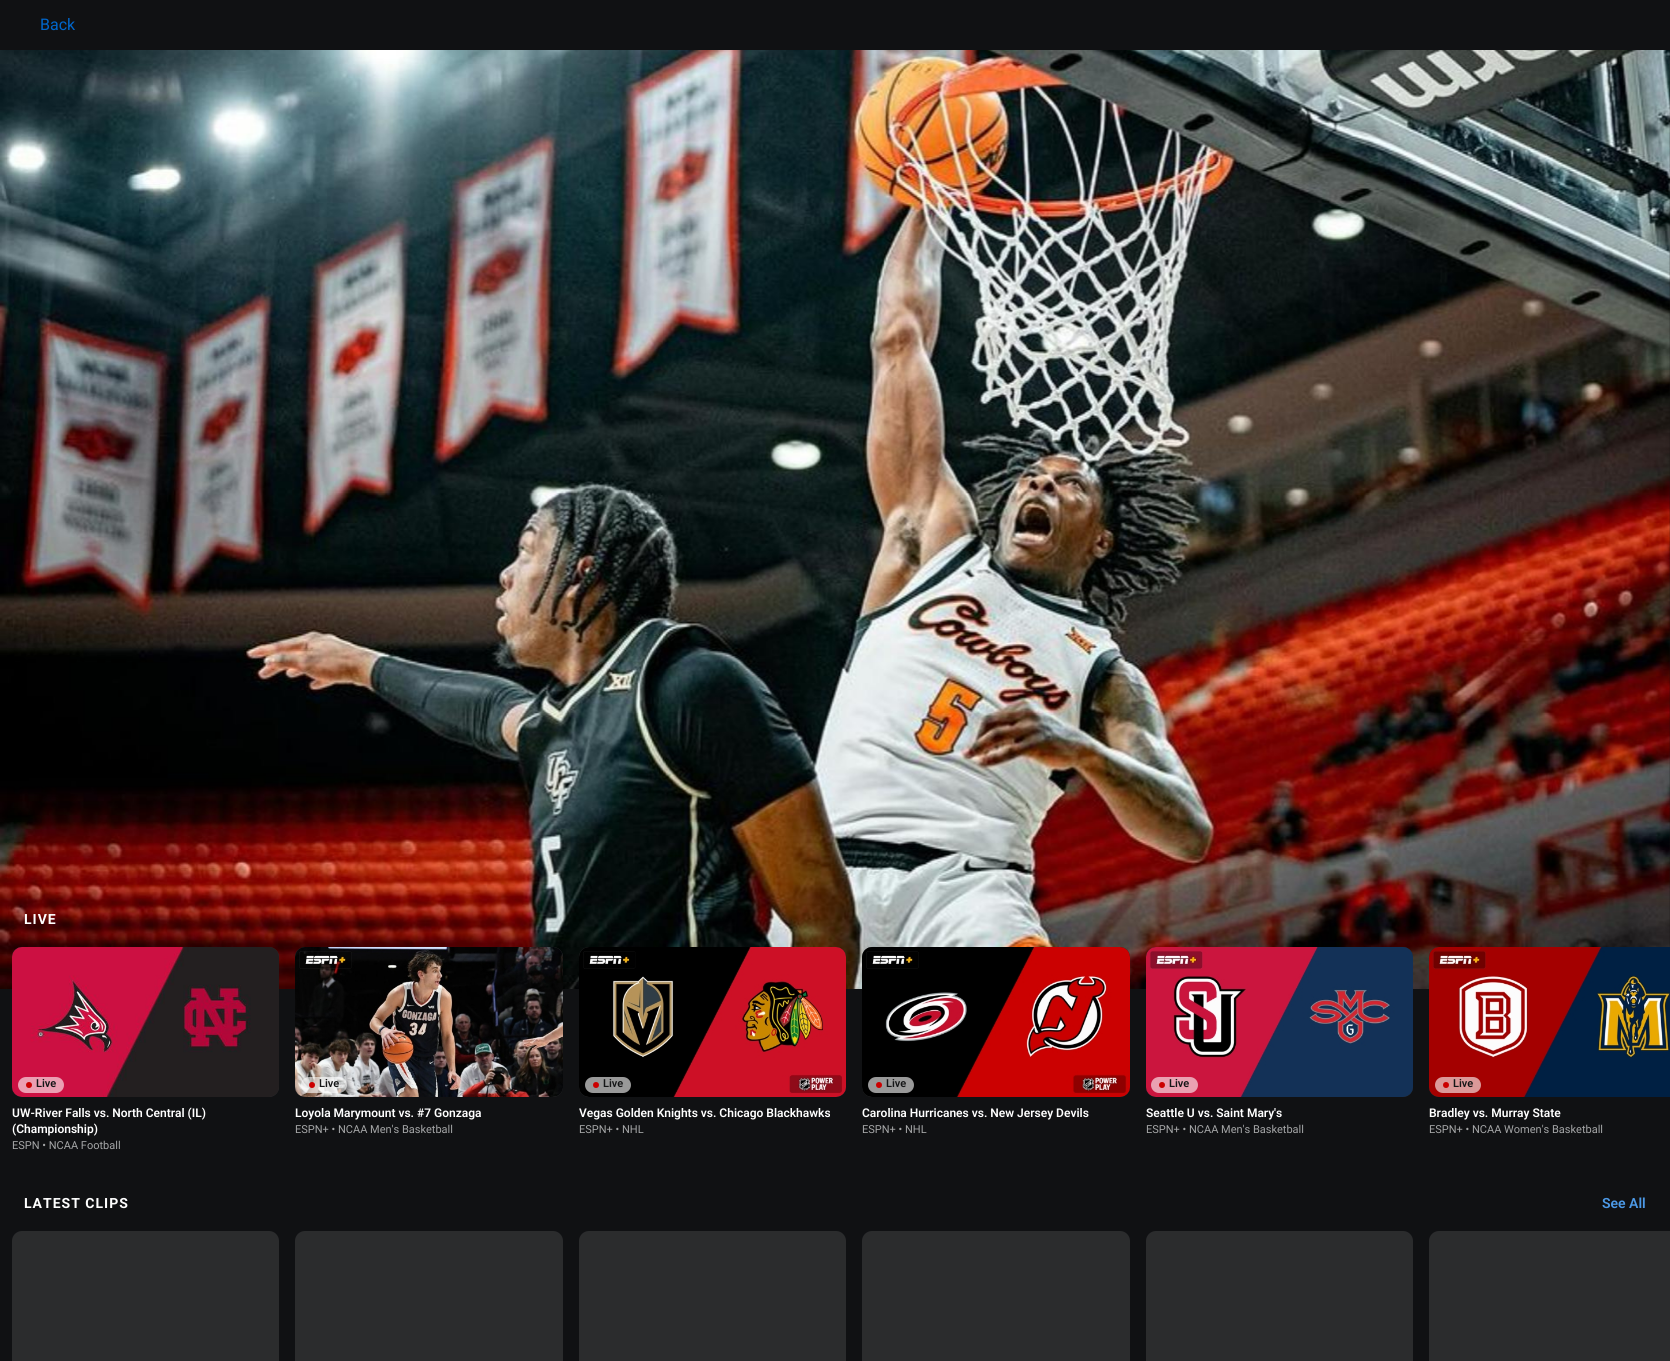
import math
import cairo


def use_color(cr, r, g, b):
  cr.set_source_rgb(r / 255, g / 255, b / 255)

def text(cr, x, y, s, family, size, color, bold=False, italic=False):
  cr.select_font_face(family, cairo.FONT_SLANT_ITALIC if italic else cairo.FONT_SLANT_NORMAL, cairo.FONT_WEIGHT_BOLD if bold else cairo.FONT_WEIGHT_NORMAL)
  cr.set_font_size(size)
  use_color(cr, *color)
  cr.move_to(x, y)
  cr.show_text(s)

def spaced_text(cr, x, y, s, letter, word):
  cr.move_to(x, y)
  for ch in s:
    cr.show_text(ch)
    cr.rel_move_to(letter + word * (ch == ' '), 0)

def round_rect(cr, x, y, w, h, r):
  cr.new_sub_path()
  for i, (u, v) in enumerate([(x + w - r, y + h - r), (x + r, y + h - r), (x + r, y + r), (x + w - r, y + r)]):
    cr.arc(u, v, r, i * math.pi / 2, (i + 1) * math.pi / 2)
  cr.close_path()

def picture(cr, path, x, y, w, h):
  cr.save()
  cr.set_source_surface(cairo.ImageSurface.create_from_png(path), x, y)
  cr.rectangle(x, y, w, h)
  cr.fill()
  cr.restore()

def draw(cr):
  use_color(cr, 16, 17, 19)
  cr.paint()
  picture(cr, "img_01.png", 0, 50, 1670, 939)
  use_color(cr, 43, 44, 45)
  round_rect(cr, 12, 947, 267, 150, 10)
  cr.fill()
  picture(cr, "img_02.png", 12, 947, 267, 150)
  use_color(cr, 235, 159, 179)
  round_rect(cr, 18, 1077, 46, 16, 8)
  cr.fill()
  use_color(cr, 204, 0, 0)
  cr.arc(29, 1085, 3, 0, 2 * math.pi)
  cr.fill()
  use_color(cr, 43, 44, 45)
  round_rect(cr, 295, 947, 268, 150, 10)
  cr.fill()
  picture(cr, "img_03.png", 295, 947, 268, 150)
  cr.set_source_rgba(1, 1, 1, 0.6)
  round_rect(cr, 301, 1077, 46, 16, 8)
  cr.fill()
  use_color(cr, 204, 0, 0)
  cr.arc(312, 1085, 3, 0, 2 * math.pi)
  cr.fill()
  use_color(cr, 43, 44, 45)
  round_rect(cr, 579, 947, 267, 150, 10)
  cr.fill()
  picture(cr, "img_04.png", 579, 947, 267, 150)
  use_color(cr, 153, 153, 153)
  round_rect(cr, 585, 1077, 46, 16, 8)
  cr.fill()
  use_color(cr, 204, 0, 0)
  cr.arc(596, 1085, 3, 0, 2 * math.pi)
  cr.fill()
  use_color(cr, 43, 44, 45)
  round_rect(cr, 862, 947, 268, 150, 10)
  cr.fill()
  picture(cr, "img_05.png", 862, 947, 268, 150)
  use_color(cr, 153, 153, 153)
  round_rect(cr, 868, 1077, 46, 16, 8)
  cr.fill()
  use_color(cr, 204, 0, 0)
  cr.arc(879, 1085, 3, 0, 2 * math.pi)
  cr.fill()
  use_color(cr, 43, 44, 45)
  round_rect(cr, 1146, 947, 267, 150, 10)
  cr.fill()
  picture(cr, "img_06.png", 1146, 947, 267, 150)
  use_color(cr, 234, 161, 178)
  round_rect(cr, 1151, 1077, 47, 16, 8)
  cr.fill()
  use_color(cr, 204, 0, 0)
  cr.arc(1162, 1085, 3, 0, 2 * math.pi)
  cr.fill()
  use_color(cr, 43, 44, 45)
  cr.new_path()
  cr.move_to(1439, 947)
  cr.line_to(1670, 947)
  cr.line_to(1670, 1097)
  cr.line_to(1439, 1097)
  cr.curve_to(1433.5, 1097, 1429, 1092.5, 1429, 1087)
  cr.line_to(1429, 957)
  cr.curve_to(1429, 951.5, 1433.5, 947, 1439, 947)
  cr.close_path()
  cr.fill()
  picture(cr, "img_07.png", 1429, 947, 241, 150)
  use_color(cr, 219, 153, 153)
  round_rect(cr, 1435, 1077, 46, 16, 8)
  cr.fill()
  use_color(cr, 204, 0, 0)
  cr.arc(1446, 1085, 3, 0, 2 * math.pi)
  cr.fill()
  use_color(cr, 43, 44, 45)
  round_rect(cr, 12, 1231, 267, 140, 10)
  cr.fill()
  round_rect(cr, 295, 1231, 268, 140, 10)
  cr.fill()
  round_rect(cr, 579, 1231, 267, 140, 10)
  cr.fill()
  round_rect(cr, 862, 1231, 268, 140, 10)
  cr.fill()
  round_rect(cr, 1146, 1231, 267, 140, 10)
  cr.fill()
  cr.new_path()
  cr.move_to(1439, 1231)
  cr.line_to(1670, 1231)
  cr.line_to(1670, 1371)
  cr.line_to(1439, 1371)
  cr.curve_to(1433.5, 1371, 1429, 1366.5, 1429, 1361)
  cr.line_to(1429, 1241)
  cr.curve_to(1429, 1235.5, 1433.5, 1231, 1439, 1231)
  cr.close_path()
  cr.fill()
  text(cr, 40, 30, "Back", "Roboto", 16, (0, 102, 204))
  cr.select_font_face("Roboto", cairo.FONT_SLANT_NORMAL, cairo.FONT_WEIGHT_BOLD)
  cr.set_font_size(14)
  use_color(cr, 255, 255, 255)
  spaced_text(cr, 24, 924, "LIVE", 1, 0)
  text(cr, 36, 1087, "Live", "Roboto SemiBold", 11, (21, 22, 23))
  text(cr, 12, 1117, "UW-River Falls vs. North Central (IL)", "Roboto SemiBold", 12, (255, 255, 255))
  text(cr, 12, 1133, "(Championship)", "Roboto SemiBold", 12, (255, 255, 255))
  text(cr, 12, 1149, "ESPN • NCAA Football", "Roboto", 11, (165, 166, 167))
  text(cr, 319, 1087, "Live", "Roboto SemiBold", 11, (21, 22, 23))
  text(cr, 295, 1117, "Loyola Marymount vs. #7 Gonzaga", "Roboto SemiBold", 12, (255, 255, 255))
  text(cr, 295, 1133, "ESPN+ • NCAA Men's Basketball", "Roboto", 11, (165, 166, 167))
  text(cr, 603, 1087, "Live", "Roboto SemiBold", 11, (21, 22, 23))
  text(cr, 579, 1117, "Vegas Golden Knights vs. Chicago Blackhawks", "Roboto SemiBold", 12, (255, 255, 255))
  text(cr, 579, 1133, "ESPN+ • NHL", "Roboto", 11, (165, 166, 167))
  text(cr, 886, 1087, "Live", "Roboto SemiBold", 11, (21, 22, 23))
  text(cr, 862, 1117, "Carolina Hurricanes vs. New Jersey Devils", "Roboto SemiBold", 12, (255, 255, 255))
  text(cr, 862, 1133, "ESPN+ • NHL", "Roboto", 11, (165, 166, 167))
  text(cr, 1169, 1087, "Live", "Roboto SemiBold", 11, (21, 22, 23))
  text(cr, 1146, 1117, "Seattle U vs. Saint Mary's", "Roboto SemiBold", 12, (255, 255, 255))
  text(cr, 1146, 1133, "ESPN+ • NCAA Men's Basketball", "Roboto", 11, (165, 166, 167))
  text(cr, 1453, 1087, "Live", "Roboto SemiBold", 11, (21, 22, 23))
  text(cr, 1429, 1117, "Bradley vs. Murray State", "Roboto SemiBold", 12, (255, 255, 255))
  text(cr, 1429, 1133, "ESPN+ • NCAA Women's Basketball", "Roboto", 11, (165, 166, 167))
  cr.select_font_face("Roboto", cairo.FONT_SLANT_NORMAL, cairo.FONT_WEIGHT_BOLD)
  cr.set_font_size(14)
  use_color(cr, 255, 255, 255)
  spaced_text(cr, 24, 1208, "LATEST CLIPS", 1, 0)
  text(cr, 1602, 1208, "See All", "Roboto SemiBold", 14, (76, 153, 230))


surface = cairo.ImageSurface(cairo.FORMAT_RGB24, 1670, 1361)
cr = cairo.Context(surface)
options = cairo.FontOptions()
options.set_hint_metrics(cairo.HINT_METRICS_OFF)
options.set_hint_style(cairo.HINT_STYLE_NONE)
cr.set_font_options(options)
cr.set_miter_limit(4)
draw(cr)
surface.write_to_png("out.png")
